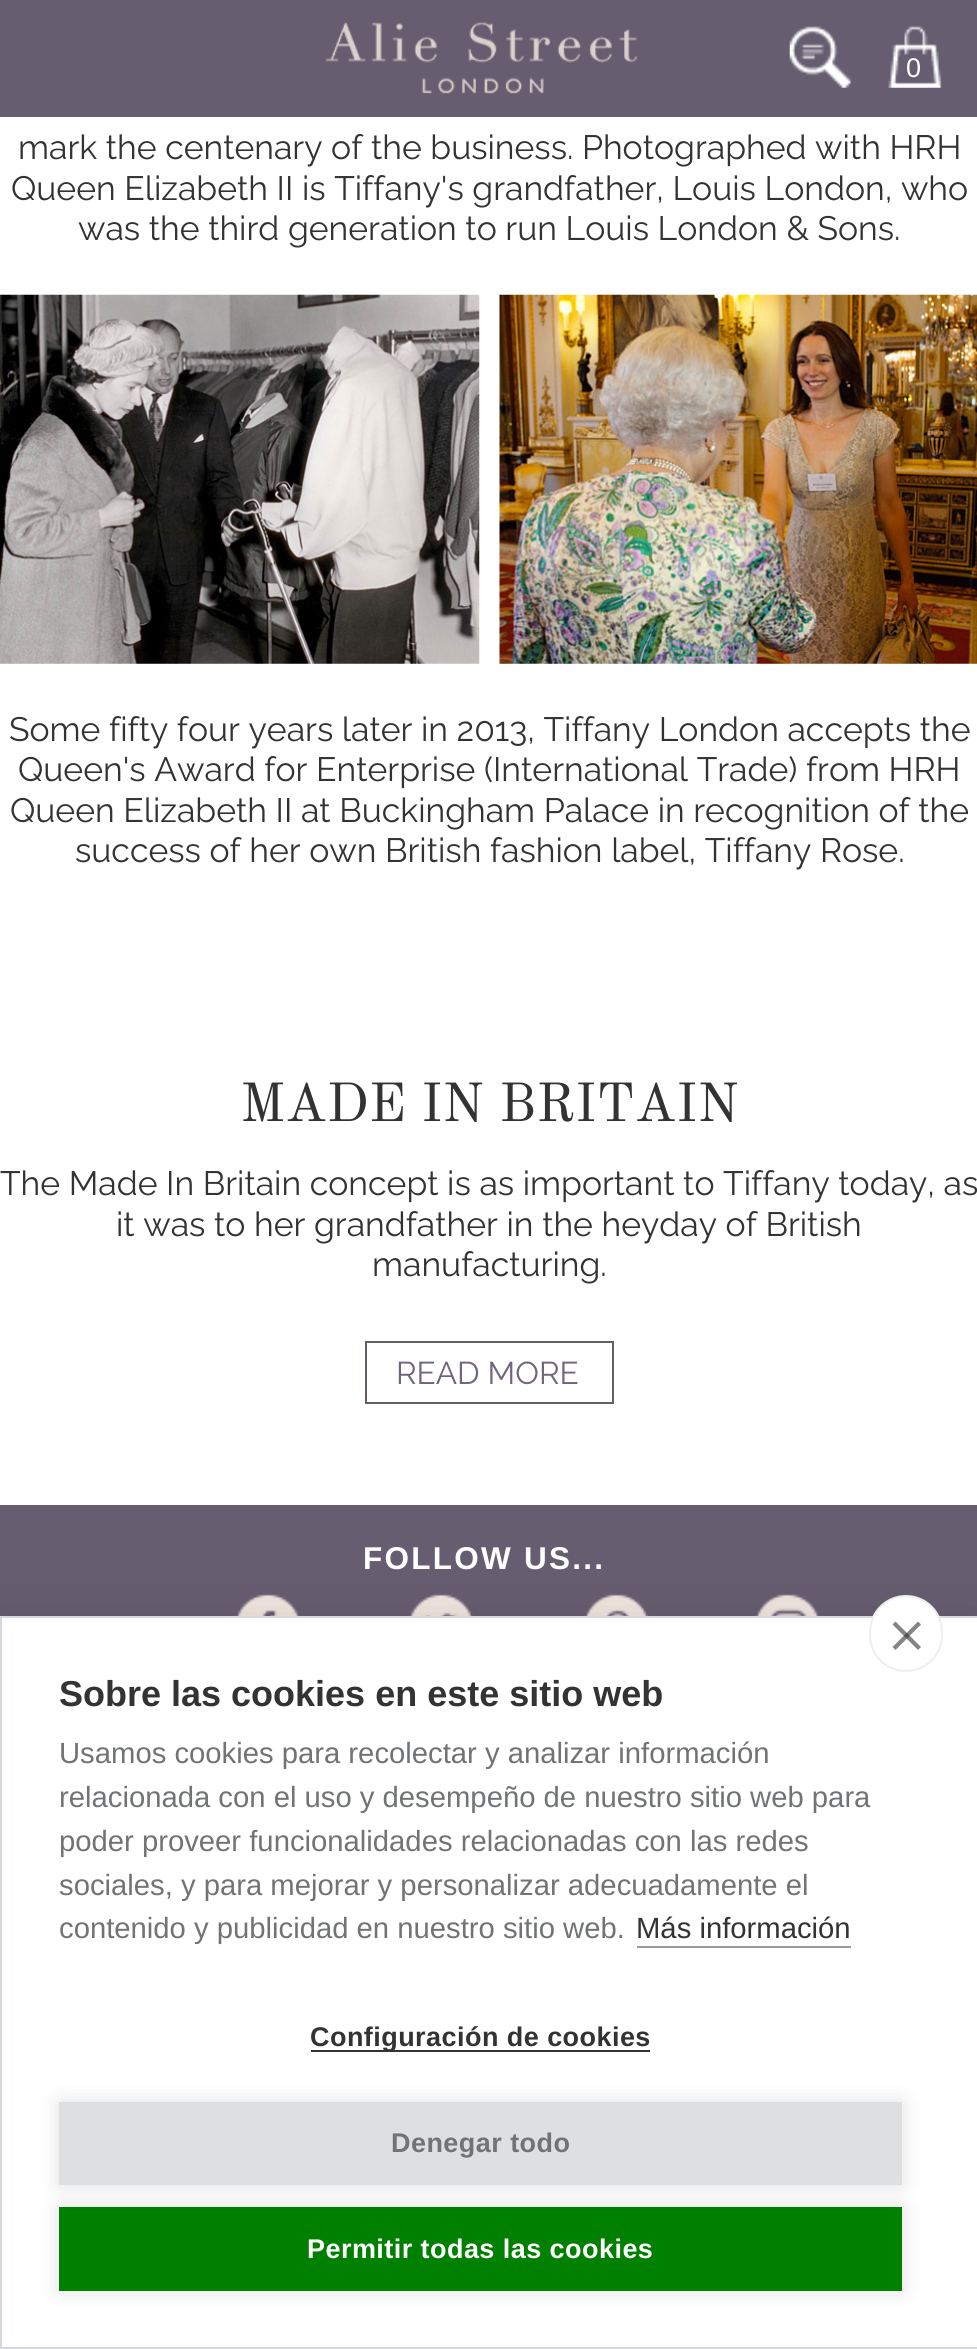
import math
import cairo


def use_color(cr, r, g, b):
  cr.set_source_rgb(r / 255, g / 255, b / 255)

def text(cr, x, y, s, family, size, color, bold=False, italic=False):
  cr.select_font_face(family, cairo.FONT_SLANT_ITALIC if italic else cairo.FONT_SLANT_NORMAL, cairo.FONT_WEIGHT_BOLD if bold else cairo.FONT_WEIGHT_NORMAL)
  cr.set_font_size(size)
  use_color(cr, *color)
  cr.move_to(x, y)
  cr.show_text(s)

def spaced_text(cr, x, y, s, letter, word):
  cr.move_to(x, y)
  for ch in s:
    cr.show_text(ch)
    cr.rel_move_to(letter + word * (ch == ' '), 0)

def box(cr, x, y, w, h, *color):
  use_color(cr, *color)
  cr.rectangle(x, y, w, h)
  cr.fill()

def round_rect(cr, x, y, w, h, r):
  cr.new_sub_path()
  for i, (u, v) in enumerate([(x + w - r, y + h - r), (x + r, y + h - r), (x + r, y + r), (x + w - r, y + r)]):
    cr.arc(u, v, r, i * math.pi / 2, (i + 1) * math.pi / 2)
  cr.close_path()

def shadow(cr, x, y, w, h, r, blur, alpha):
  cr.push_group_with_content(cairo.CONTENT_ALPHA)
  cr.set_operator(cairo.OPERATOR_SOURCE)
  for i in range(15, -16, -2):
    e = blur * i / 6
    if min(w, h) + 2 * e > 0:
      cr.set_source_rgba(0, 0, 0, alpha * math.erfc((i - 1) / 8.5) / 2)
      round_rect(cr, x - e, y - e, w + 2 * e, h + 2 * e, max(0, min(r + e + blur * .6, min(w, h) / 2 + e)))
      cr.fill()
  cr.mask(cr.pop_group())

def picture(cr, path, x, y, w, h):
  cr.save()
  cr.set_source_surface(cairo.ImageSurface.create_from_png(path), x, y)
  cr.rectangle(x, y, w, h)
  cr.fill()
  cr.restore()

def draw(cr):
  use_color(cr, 255, 255, 255)
  cr.paint()
  box(cr, 0, 0, 977, 117, 102, 93, 112)
  picture(cr, "img_01.png", 326, 22, 311, 72)
  picture(cr, "img_02.png", 789, 26, 62, 62)
  picture(cr, "img_03.png", 888, 25, 54, 63)
  picture(cr, "img_04.png", 0, 294, 480, 370)
  picture(cr, "img_05.png", 499, 294, 478, 370)
  cr.rectangle(366, 1342, 247, 61)
  use_color(cr, 103, 93, 102)
  cr.stroke()
  box(cr, 0, 1505, 977, 111, 102, 93, 112)
  picture(cr, "img_06.png", 236, 1594, 64, 22)
  picture(cr, "img_07.png", 409, 1594, 64, 22)
  picture(cr, "img_08.png", 584, 1594, 65, 22)
  picture(cr, "img_09.png", 755, 1594, 69, 22)
  use_color(cr, 0, 0, 0)
  shadow(cr, 0, 1616, 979, 733, 0, 22.5, 0.1)
  use_color(cr, 255, 255, 255)
  cr.rectangle(1, 1617, 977, 731)
  cr.fill_preserve()
  use_color(cr, 212, 216, 223)
  cr.stroke()
  use_color(cr, 255, 255, 255)
  round_rect(cr, 870, 1596, 72, 75, 36)
  cr.fill_preserve()
  use_color(cr, 238, 238, 238)
  cr.stroke()
  use_color(cr, 133, 133, 133)
  cr.new_path()
  cr.move_to(892.5, 1647)
  cr.line_to(918, 1621.5)
  cr.line_to(921, 1624.5)
  cr.line_to(895.5, 1650)
  cr.close_path()
  cr.fill()
  cr.set_source_rgba(0.2, 0.2, 0.2, 0.6)
  cr.new_path()
  cr.move_to(895.5, 1621.5)
  cr.line_to(921, 1647)
  cr.line_to(918, 1650)
  cr.line_to(892.5, 1624.5)
  cr.close_path()
  cr.fill()
  box(cr, 637, 1946, 214, 2, 153, 153, 153)
  box(cr, 311, 2050, 339, 2, 51, 51, 51)
  use_color(cr, 0, 0, 0)
  shadow(cr, 59, 2102, 843, 83, 0, 11, 0.12)
  box(cr, 59, 2102, 843, 83, 222, 223, 224)
  use_color(cr, 0, 0, 0)
  shadow(cr, 59, 2207, 843, 84, 0, 11, 0.12)
  box(cr, 59, 2207, 843, 84, 0, 128, 0)
  text(cr, 906, 77, "0", "Liberation Sans", 27, (255, 255, 255))
  text(cr, 18, 159, "mark the centenary of the business. Photographed with HRH", "Raleway", 33.75, (51, 51, 51))
  text(cr, 11, 200, "Queen Elizabeth II is Tiffany's grandfather, Louis London, who", "Raleway", 33.75, (51, 51, 51))
  text(cr, 78, 240, "was the third generation to run Louis London & Sons.", "Raleway", 33.75, (51, 51, 51))
  text(cr, 9, 741, "Some fifty four years later in 2013, Tiffany London accepts the", "Raleway", 33.75, (51, 51, 51))
  text(cr, 18, 781, "Queen's Award for Enterprise (International Trade) from HRH", "Raleway", 33.75, (51, 51, 51))
  text(cr, 10, 822, "Queen Elizabeth II at Buckingham Palace in recognition of the", "Raleway", 33.75, (51, 51, 51))
  text(cr, 75, 862, "success of her own British fashion label, Tiffany Rose.", "Raleway", 33.75, (51, 51, 51))
  text(cr, 240, 1121, "MADE IN BRITAIN", "Old Standard TT", 54, (51, 51, 51))
  text(cr, 0, 1195, "The Made In Britain concept is as important to Tiffany today, as", "Raleway", 33.75, (51, 51, 51))
  text(cr, 116, 1236, "it was to her grandfather in the heyday of British", "Raleway", 33.75, (51, 51, 51))
  text(cr, 372, 1276, "manufacturing.", "Raleway", 33.75, (51, 51, 51))
  text(cr, 396, 1384, "READ MORE", "Raleway", 31.5, (113, 100, 127))
  cr.select_font_face("Liberation Sans", cairo.FONT_SLANT_NORMAL, cairo.FONT_WEIGHT_BOLD)
  use_color(cr, 255, 255, 255)
  spaced_text(cr, 363, 1569, "FOLLOW US...", 2.25, 0)
  text(cr, 59, 1706, "Sobre las cookies en este sitio web", "Liberation Sans", 36, (51, 51, 51), bold=True)
  text(cr, 59, 1763, "Usamos cookies para recolectar y analizar información", "Liberation Sans", 29.25, (113, 115, 117))
  text(cr, 59, 1807, "relacionada con el uso y desempeño de nuestro sitio web para", "Liberation Sans", 29.25, (113, 115, 117))
  text(cr, 59, 1851, "poder proveer funcionalidades relacionadas con las redes", "Liberation Sans", 29.25, (113, 115, 117))
  text(cr, 59, 1895, "sociales, y para mejorar y personalizar adecuadamente el", "Liberation Sans", 29.25, (113, 115, 117))
  text(cr, 59, 1938, "contenido y publicidad en nuestro sitio web.", "Liberation Sans", 29.25, (113, 115, 117))
  text(cr, 636, 1938, "Más información", "Liberation Sans", 29.25, (51, 51, 51))
  cr.select_font_face("Liberation Sans", cairo.FONT_SLANT_NORMAL, cairo.FONT_WEIGHT_BOLD)
  cr.set_font_size(27)
  spaced_text(cr, 310, 2046, "Configuración de cookies", 0.45, 0)
  use_color(cr, 113, 115, 117)
  spaced_text(cr, 391, 2152, "Denegar todo", 0.45, 0)
  use_color(cr, 255, 255, 255)
  spaced_text(cr, 307, 2258, "Permitir todas las cookies", 0.45, 0)


surface = cairo.ImageSurface(cairo.FORMAT_RGB24, 977, 2349)
cr = cairo.Context(surface)
options = cairo.FontOptions()
options.set_hint_metrics(cairo.HINT_METRICS_OFF)
options.set_hint_style(cairo.HINT_STYLE_NONE)
cr.set_font_options(options)
cr.set_miter_limit(4)
draw(cr)
surface.write_to_png("out.png")
